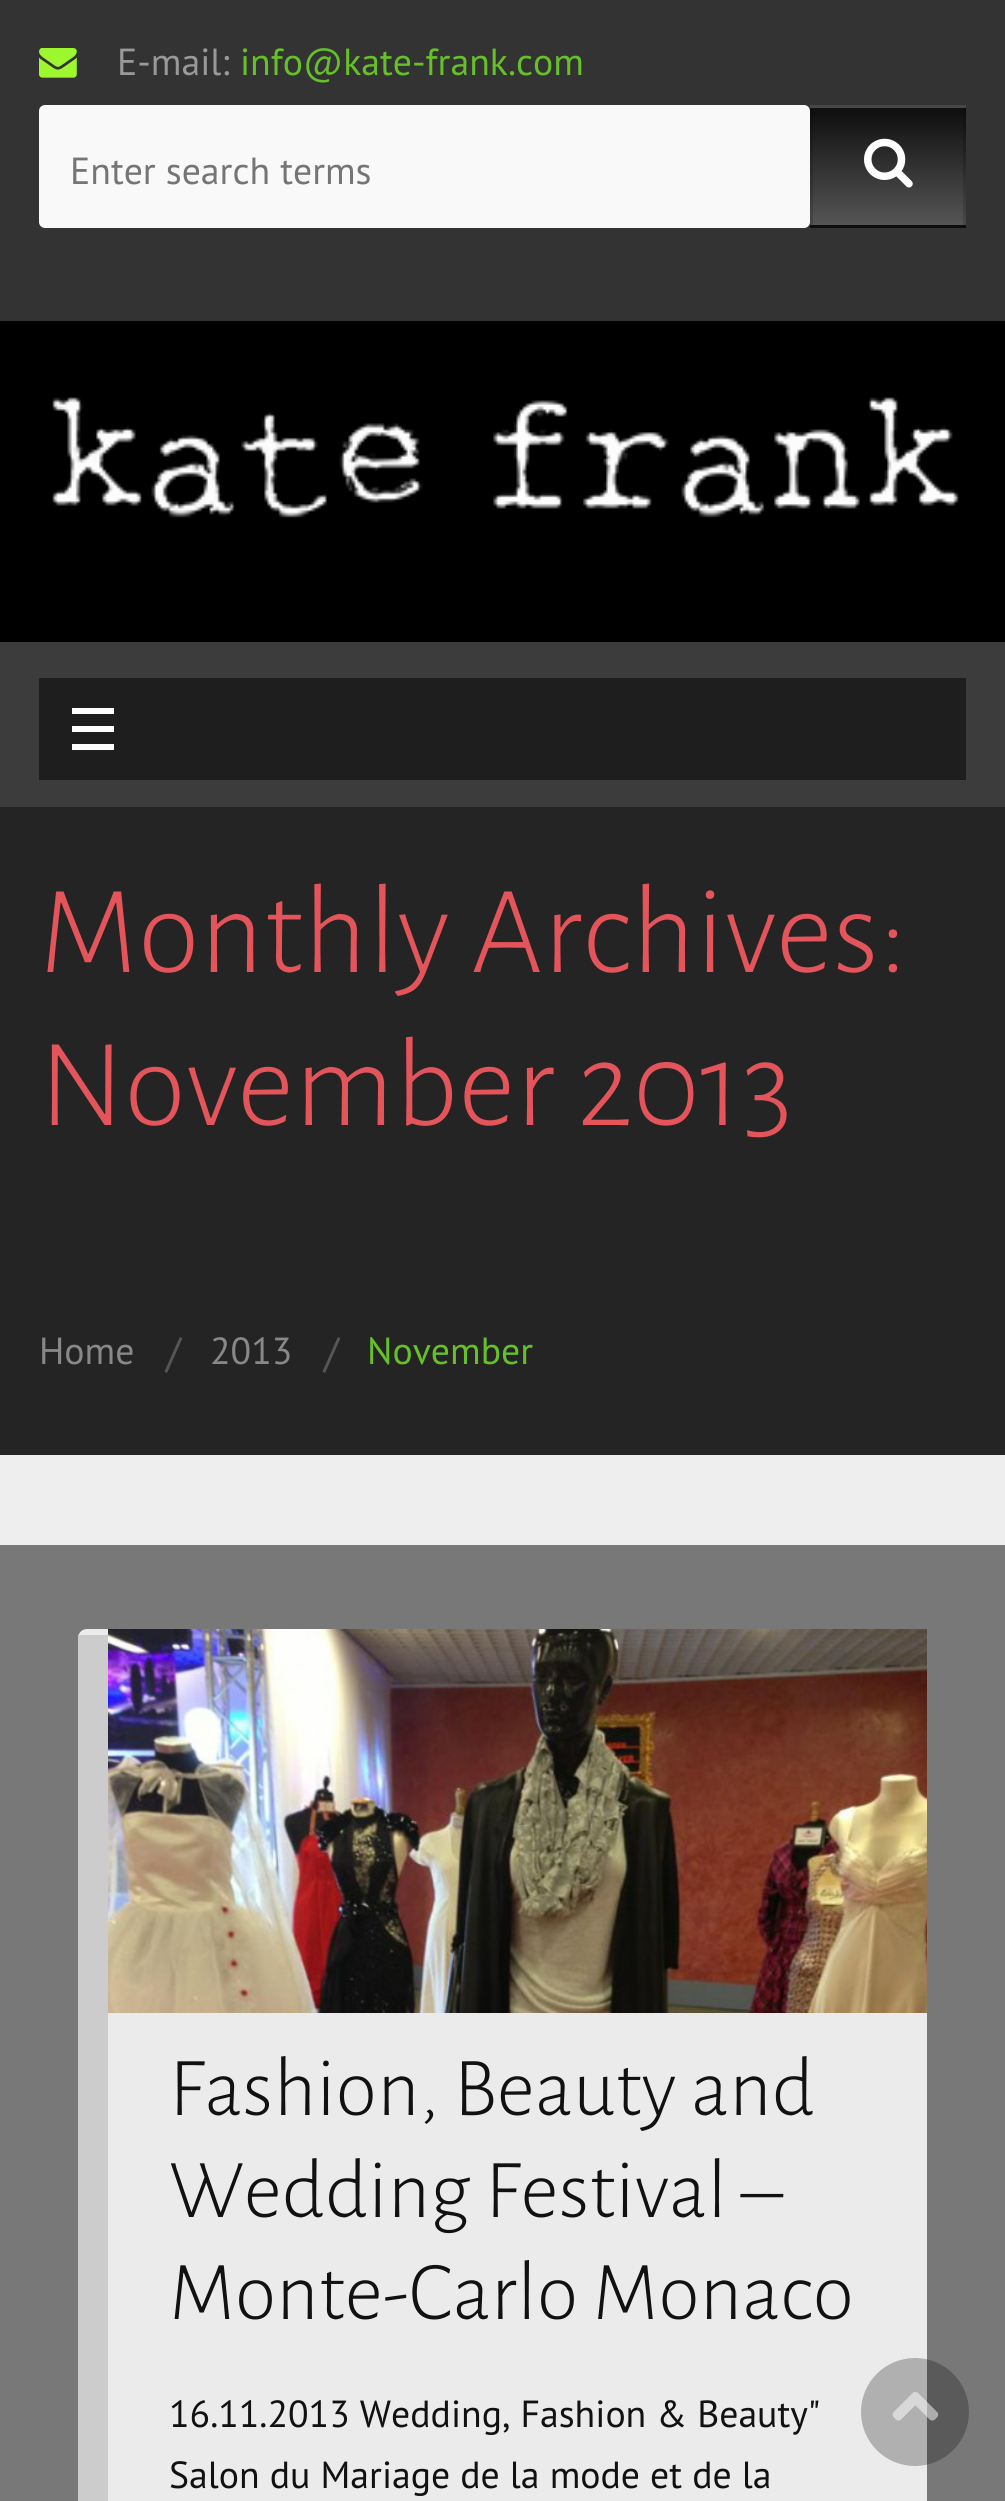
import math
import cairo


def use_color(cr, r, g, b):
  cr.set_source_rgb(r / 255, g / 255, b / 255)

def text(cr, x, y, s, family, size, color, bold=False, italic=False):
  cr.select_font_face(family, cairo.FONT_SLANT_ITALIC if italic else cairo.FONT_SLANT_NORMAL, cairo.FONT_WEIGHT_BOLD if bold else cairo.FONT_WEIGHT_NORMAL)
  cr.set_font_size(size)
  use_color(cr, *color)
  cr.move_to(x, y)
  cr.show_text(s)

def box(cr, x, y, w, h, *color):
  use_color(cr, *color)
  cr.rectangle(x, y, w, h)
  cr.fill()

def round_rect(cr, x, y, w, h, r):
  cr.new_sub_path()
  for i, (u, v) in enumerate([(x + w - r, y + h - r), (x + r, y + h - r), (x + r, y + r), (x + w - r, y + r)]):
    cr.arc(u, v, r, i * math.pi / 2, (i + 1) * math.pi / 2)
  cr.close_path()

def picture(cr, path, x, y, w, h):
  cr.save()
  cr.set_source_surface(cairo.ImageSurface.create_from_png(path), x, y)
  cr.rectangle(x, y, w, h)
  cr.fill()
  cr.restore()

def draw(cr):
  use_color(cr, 238, 238, 238)
  cr.paint()
  box(cr, 0, 0, 1005, 321, 51, 51, 51)
  picture(cr, "img_01.png", 39, 48, 38, 30)
  use_color(cr, 249, 249, 249)
  round_rect(cr, 39, 105, 771, 123, 6)
  cr.fill()
  box(cr, 810, 225, 156, 3, 17, 17, 17)
  gradient = cairo.LinearGradient(813, -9, 813, 108)
  gradient.add_color_stop_rgba(0.05, 0.067, 0.067, 0.067, 1)
  gradient.add_color_stop_rgba(1, 0.333, 0.333, 0.333, 1)
  cr.set_source(gradient)
  cr.rectangle(810, 105, 156, 3)
  cr.fill()
  gradient = cairo.LinearGradient(813, 108, 813, 225)
  gradient.add_color_stop_rgba(0.05, 0.067, 0.067, 0.067, 1)
  gradient.add_color_stop_rgba(1, 0.333, 0.333, 0.333, 1)
  cr.set_source(gradient)
  cr.rectangle(810, 108, 156, 117)
  cr.fill()
  cr.rectangle(811.5, 106.5, 153, 120)
  cr.set_source_rgba(0, 0, 0, 0.15)
  cr.set_line_width(3)
  cr.stroke()
  picture(cr, "img_02.png", 864, 138, 49, 50)
  box(cr, 0, 321, 1005, 321, 0, 0, 0)
  picture(cr, "img_03.png", 52, 397, 907, 121)
  box(cr, 0, 642, 1005, 165, 60, 60, 60)
  box(cr, 39, 678, 927, 102, 30, 30, 30)
  box(cr, 72, 744, 42, 6, 255, 255, 255)
  box(cr, 72, 726, 42, 6, 255, 255, 255)
  box(cr, 72, 708, 42, 6, 255, 255, 255)
  box(cr, 0, 807, 1005, 648, 36, 36, 36)
  box(cr, 0, 1545, 1005, 956, 120, 120, 120)
  use_color(cr, 235, 235, 235)
  round_rect(cr, 78, 1629, 849, 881, 9)
  cr.fill()
  box(cr, 78, 1635, 30, 866, 204, 204, 204)
  picture(cr, "img_04.png", 108, 1629, 819, 384)
  cr.set_source_rgba(0, 0, 0, 0.25)
  cr.arc(915, 2412, 54, 0, 2 * math.pi)
  cr.fill()
  picture(cr, "img_05.png", 892, 2391, 47, 30)
  text(cr, 117, 75, "E-mail:", "PT Sans", 37.75, (153, 153, 153))
  text(cr, 240, 75, "info@kate-frank.com", "PT Sans", 37.75, (102, 193, 41))
  text(cr, 70, 184, "Enter search terms", "PT Sans", 37.75, (117, 117, 117))
  text(cr, 39, 972, "Monthly Archives:", "Alegreya Sans Light", 126, (228, 84, 91))
  text(cr, 39, 1125, "November 2013", "Alegreya Sans Light", 126, (228, 84, 91))
  text(cr, 39, 1364, "Home", "PT Sans", 37.75, (136, 136, 136))
  text(cr, 166, 1367, "/", "PT Sans", 42, (85, 85, 85))
  text(cr, 210, 1364, "2013", "PT Sans", 37.75, (136, 136, 136))
  text(cr, 324, 1367, "/", "PT Sans", 42, (85, 85, 85))
  text(cr, 367, 1364, "November", "PT Sans", 37.75, (102, 193, 41))
  text(cr, 169, 2115, "Fashion, Beauty and", "Alegreya Sans Light", 84, (17, 17, 17))
  text(cr, 169, 2217, "Wedding Festival –", "Alegreya Sans Light", 84, (17, 17, 17))
  text(cr, 169, 2319, "Monte-Carlo Monaco", "Alegreya Sans Light", 84, (17, 17, 17))
  text(cr, 169, 2427, "16.11.2013 Wedding, Fashion & Beauty\"", "PT Sans", 37.75, (17, 17, 17))
  text(cr, 169, 2488, "Salon du Mariage de la mode et de la", "PT Sans", 37.75, (17, 17, 17))


surface = cairo.ImageSurface(cairo.FORMAT_RGB24, 1005, 2501)
cr = cairo.Context(surface)
options = cairo.FontOptions()
options.set_hint_metrics(cairo.HINT_METRICS_OFF)
options.set_hint_style(cairo.HINT_STYLE_NONE)
cr.set_font_options(options)
cr.set_miter_limit(4)
draw(cr)
surface.write_to_png("out.png")
